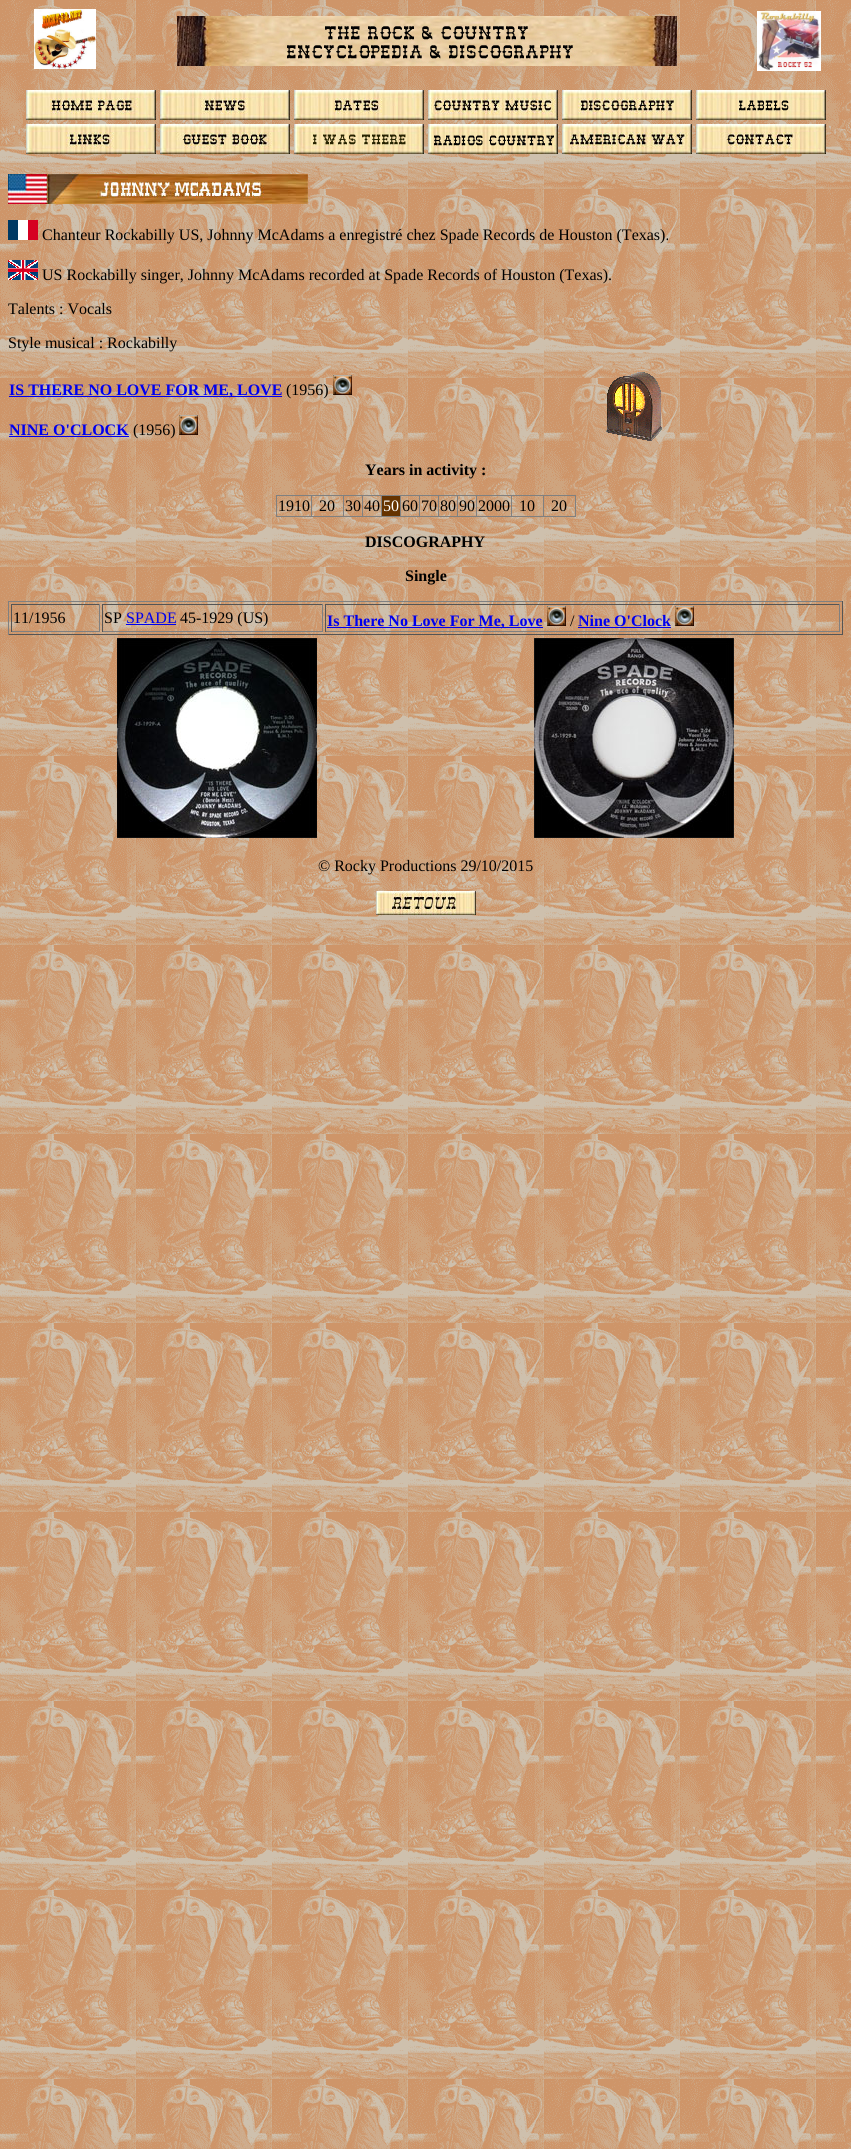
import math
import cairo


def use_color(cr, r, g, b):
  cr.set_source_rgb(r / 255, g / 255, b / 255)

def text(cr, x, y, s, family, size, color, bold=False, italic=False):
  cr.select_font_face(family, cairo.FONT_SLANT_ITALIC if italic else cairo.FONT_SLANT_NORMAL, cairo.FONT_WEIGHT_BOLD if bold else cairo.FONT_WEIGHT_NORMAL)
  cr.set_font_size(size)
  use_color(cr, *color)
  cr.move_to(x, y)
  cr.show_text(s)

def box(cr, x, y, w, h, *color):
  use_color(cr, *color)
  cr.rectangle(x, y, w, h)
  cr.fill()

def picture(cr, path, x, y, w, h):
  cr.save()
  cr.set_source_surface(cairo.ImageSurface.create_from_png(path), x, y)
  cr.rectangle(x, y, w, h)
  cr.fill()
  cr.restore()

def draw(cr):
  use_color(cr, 255, 255, 255)
  cr.paint()
  picture(cr, "img_01.png", 0, 0, 851, 2149)
  picture(cr, "img_02.png", 34, 9, 62, 60)
  picture(cr, "img_03.png", 177, 16, 500, 50)
  picture(cr, "img_04.png", 757, 11, 64, 60)
  picture(cr, "img_05.png", 26, 90, 130, 30)
  picture(cr, "img_06.png", 160, 90, 130, 30)
  picture(cr, "img_07.png", 294, 90, 130, 30)
  picture(cr, "img_08.png", 428, 90, 130, 30)
  picture(cr, "img_09.png", 562, 90, 130, 30)
  picture(cr, "img_10.png", 696, 90, 130, 30)
  picture(cr, "img_11.png", 26, 124, 130, 30)
  picture(cr, "img_12.png", 160, 124, 130, 30)
  picture(cr, "img_13.png", 294, 124, 130, 30)
  picture(cr, "img_14.png", 428, 124, 130, 30)
  picture(cr, "img_15.png", 562, 124, 130, 30)
  picture(cr, "img_16.png", 696, 124, 130, 30)
  picture(cr, "img_17.png", 8, 174, 300, 30)
  picture(cr, "img_18.png", 8, 220, 30, 20)
  picture(cr, "img_19.png", 8, 260, 30, 20)
  box(cr, 9, 396, 273, 1, 0, 0, 238)
  picture(cr, "img_20.png", 333, 375, 19, 20)
  box(cr, 9, 436, 120, 1, 0, 0, 238)
  picture(cr, "img_20.png", 179, 415, 19, 20)
  picture(cr, "img_21.png", 606, 372, 56, 69)
  box(cr, 276, 495, 300, 1, 128, 128, 128)
  box(cr, 575, 495, 1, 22, 128, 128, 128)
  box(cr, 276, 516, 300, 1, 128, 128, 128)
  box(cr, 276, 495, 1, 22, 128, 128, 128)
  box(cr, 311, 495, 1, 22, 128, 128, 128)
  box(cr, 343, 495, 1, 22, 128, 128, 128)
  box(cr, 362, 495, 1, 22, 128, 128, 128)
  box(cr, 382, 496, 18, 20, 102, 51, 0)
  box(cr, 381, 495, 1, 22, 128, 128, 128)
  box(cr, 400, 495, 1, 22, 128, 128, 128)
  box(cr, 419, 495, 1, 22, 128, 128, 128)
  box(cr, 438, 495, 1, 22, 128, 128, 128)
  box(cr, 457, 495, 1, 22, 128, 128, 128)
  box(cr, 476, 495, 1, 22, 128, 128, 128)
  box(cr, 511, 495, 1, 22, 128, 128, 128)
  box(cr, 543, 495, 1, 22, 128, 128, 128)
  box(cr, 8, 601, 835, 1, 128, 128, 128)
  box(cr, 842, 601, 1, 34, 85, 85, 85)
  box(cr, 8, 634, 835, 1, 85, 85, 85)
  box(cr, 8, 601, 1, 34, 128, 128, 128)
  box(cr, 11, 604, 89, 1, 85, 85, 85)
  box(cr, 99, 604, 1, 28, 128, 128, 128)
  box(cr, 11, 631, 89, 1, 128, 128, 128)
  box(cr, 11, 604, 1, 28, 85, 85, 85)
  box(cr, 102, 604, 221, 1, 85, 85, 85)
  box(cr, 322, 604, 1, 28, 128, 128, 128)
  box(cr, 102, 631, 221, 1, 128, 128, 128)
  box(cr, 102, 604, 1, 28, 85, 85, 85)
  box(cr, 126, 624, 50, 1, 0, 0, 238)
  box(cr, 325, 604, 515, 1, 85, 85, 85)
  box(cr, 839, 604, 1, 28, 128, 128, 128)
  box(cr, 325, 631, 515, 1, 128, 128, 128)
  box(cr, 325, 604, 1, 28, 85, 85, 85)
  box(cr, 327, 627, 216, 1, 0, 0, 238)
  picture(cr, "img_22.png", 547, 606, 19, 20)
  box(cr, 578, 627, 93, 1, 0, 0, 238)
  picture(cr, "img_22.png", 675, 606, 19, 20)
  picture(cr, "img_23.png", 117, 638, 200, 200)
  picture(cr, "img_24.png", 534, 638, 200, 200)
  picture(cr, "img_25.png", 376, 891, 100, 24)
  text(cr, 42, 240, "Chanteur Rockabilly US, Johnny McAdams a enregistré chez Spade Records de Houston (Texas).", "Liberation Serif", 16, (0, 0, 0))
  text(cr, 42, 280, "US Rockabilly singer, Johnny McAdams recorded at Spade Records of Houston (Texas).", "Liberation Serif", 16, (0, 0, 0))
  text(cr, 8, 314, "Talents : Vocals", "Liberation Serif", 16, (0, 0, 0))
  text(cr, 8, 348, "Style musical : Rockabilly", "Liberation Serif", 16, (0, 0, 0))
  text(cr, 9, 395, "IS THERE NO LOVE FOR ME, LOVE", "Liberation Serif", 16, (0, 0, 238), bold=True)
  text(cr, 286, 395, "(1956)", "Liberation Serif", 16, (0, 0, 0))
  text(cr, 9, 435, "NINE O'CLOCK", "Liberation Serif", 16, (0, 0, 238), bold=True)
  text(cr, 133, 435, "(1956)", "Liberation Serif", 16, (0, 0, 0))
  text(cr, 365, 475, "Years in activity :", "Liberation Serif", 16, (0, 0, 0), bold=True)
  text(cr, 278, 511, "1910", "Liberation Serif", 16, (0, 0, 0))
  text(cr, 319, 511, "20", "Liberation Serif", 16, (0, 0, 0))
  text(cr, 345, 511, "30", "Liberation Serif", 16, (0, 0, 0))
  text(cr, 364, 511, "40", "Liberation Serif", 16, (0, 0, 0))
  text(cr, 383, 511, "50", "Liberation Serif", 16, (255, 255, 255))
  text(cr, 402, 511, "60", "Liberation Serif", 16, (0, 0, 0))
  text(cr, 421, 511, "70", "Liberation Serif", 16, (0, 0, 0))
  text(cr, 440, 511, "80", "Liberation Serif", 16, (0, 0, 0))
  text(cr, 459, 511, "90", "Liberation Serif", 16, (0, 0, 0))
  text(cr, 478, 511, "2000", "Liberation Serif", 16, (0, 0, 0))
  text(cr, 519, 511, "10", "Liberation Serif", 16, (0, 0, 0))
  text(cr, 551, 511, "20", "Liberation Serif", 16, (0, 0, 0))
  text(cr, 365, 547, "DISCOGRAPHY", "Liberation Serif", 16, (0, 0, 0), bold=True)
  text(cr, 405, 581, "Single", "Liberation Serif", 16, (0, 0, 0), bold=True)
  text(cr, 13, 623, "11/1956", "Liberation Serif", 16, (0, 0, 0))
  text(cr, 104, 623, "SP", "Liberation Serif", 16, (0, 0, 0))
  text(cr, 126, 623, "SPADE", "Liberation Serif", 16, (0, 0, 238))
  text(cr, 180, 623, "45-1929 (US)", "Liberation Serif", 16, (0, 0, 0))
  text(cr, 327, 626, "Is There No Love For Me, Love", "Liberation Serif", 16, (0, 0, 238), bold=True)
  text(cr, 570, 626, "/", "Liberation Serif", 16, (0, 0, 0))
  text(cr, 578, 626, "Nine O'Clock", "Liberation Serif", 16, (0, 0, 238), bold=True)
  text(cr, 318, 871, "© Rocky Productions 29/10/2015", "Liberation Serif", 16, (0, 0, 0))


surface = cairo.ImageSurface(cairo.FORMAT_RGB24, 851, 2149)
cr = cairo.Context(surface)
options = cairo.FontOptions()
options.set_hint_metrics(cairo.HINT_METRICS_OFF)
options.set_hint_style(cairo.HINT_STYLE_NONE)
cr.set_font_options(options)
cr.set_miter_limit(4)
draw(cr)
surface.write_to_png("out.png")
